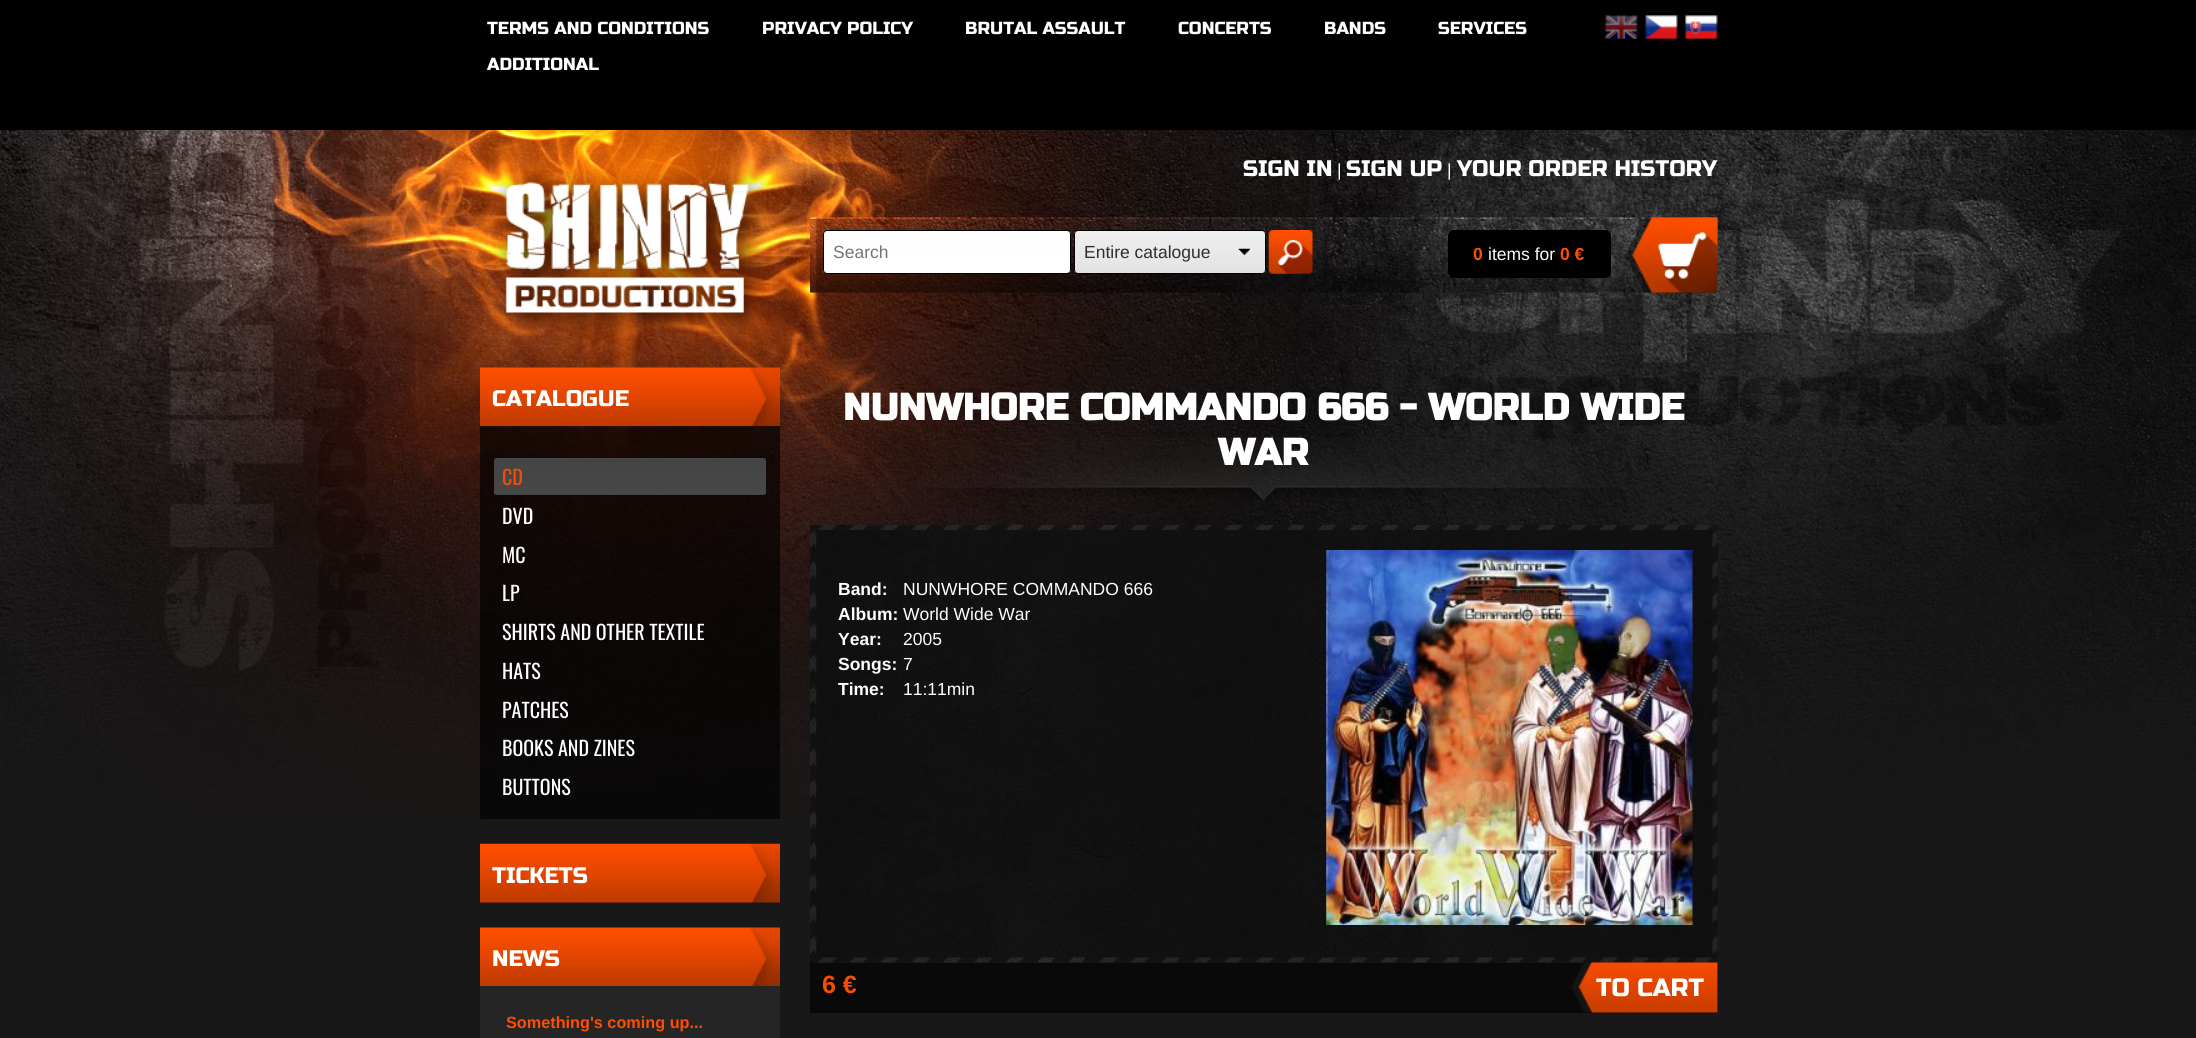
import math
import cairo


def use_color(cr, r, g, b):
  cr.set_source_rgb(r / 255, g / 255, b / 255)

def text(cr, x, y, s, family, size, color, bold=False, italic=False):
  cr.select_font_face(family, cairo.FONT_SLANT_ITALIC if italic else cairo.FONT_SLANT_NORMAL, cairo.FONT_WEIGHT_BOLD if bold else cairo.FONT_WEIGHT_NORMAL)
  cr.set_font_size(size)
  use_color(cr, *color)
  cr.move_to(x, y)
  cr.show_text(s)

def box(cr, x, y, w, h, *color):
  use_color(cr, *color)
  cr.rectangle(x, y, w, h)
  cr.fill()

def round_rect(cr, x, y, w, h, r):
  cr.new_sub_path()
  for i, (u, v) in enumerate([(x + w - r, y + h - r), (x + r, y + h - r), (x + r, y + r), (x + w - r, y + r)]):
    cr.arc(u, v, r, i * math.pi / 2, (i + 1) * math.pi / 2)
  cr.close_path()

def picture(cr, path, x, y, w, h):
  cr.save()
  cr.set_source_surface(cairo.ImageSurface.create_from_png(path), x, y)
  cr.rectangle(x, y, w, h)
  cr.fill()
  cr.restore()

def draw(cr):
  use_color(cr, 24, 24, 24)
  cr.paint()
  picture(cr, "img_01.png", 0, 130, 2196, 692)
  box(cr, 0, 0, 2196, 130, 0, 0, 0)
  picture(cr, "img_02.png", 1605, 15, 33, 24)
  picture(cr, "img_03.png", 1645, 15, 33, 24)
  picture(cr, "img_04.png", 1685, 15, 33, 24)
  picture(cr, "img_05.png", 491, 169, 279, 164)
  picture(cr, "img_06.png", 810, 217, 908, 76)
  cr.save()
  round_rect(cr, 823, 230, 248, 44, 4)
  cr.clip()
  gradient = cairo.LinearGradient(947, 231, 947, 273)
  gradient.add_color_stop_rgba(0, 0.996, 0.996, 0.996, 1)
  gradient.add_color_stop_rgba(1, 1, 1, 1, 1)
  cr.set_source(gradient)
  cr.rectangle(823, 231, 248, 42)
  cr.fill()
  cr.restore()
  round_rect(cr, 823.5, 230.5, 247, 43, 3.5)
  cr.set_line_width(1)
  cr.stroke()
  cr.save()
  round_rect(cr, 1074, 230, 192, 44, 4)
  cr.clip()
  gradient = cairo.LinearGradient(1170, 231, 1170, 273)
  gradient.add_color_stop_rgba(0, 0.937, 0.937, 0.937, 1)
  gradient.add_color_stop_rgba(1, 0.89, 0.89, 0.89, 1)
  cr.set_source(gradient)
  cr.rectangle(1074, 231, 192, 42)
  cr.fill()
  cr.restore()
  round_rect(cr, 1074.5, 230.5, 191, 43, 3.5)
  cr.stroke()
  picture(cr, "img_07.png", 1238, 248, 12, 7)
  picture(cr, "img_08.png", 1268, 230, 45, 44)
  round_rect(cr, 1448, 230, 163, 48, 6)
  cr.fill()
  picture(cr, "img_09.png", 1625, 217, 93, 76)
  picture(cr, "img_10.png", 480, 367, 300, 60)
  cr.set_source_rgba(0, 0, 0, 0.66)
  cr.rectangle(480, 426, 300, 393)
  cr.fill()
  cr.save()
  round_rect(cr, 494, 458, 272, 37, 2.5)
  cr.clip()
  gradient = cairo.LinearGradient(630, 424, 630, 459)
  gradient.add_color_stop_rgba(0, 0.267, 0.267, 0.267, 1)
  gradient.add_color_stop_rgba(1, 0.282, 0.282, 0.282, 1)
  cr.set_source(gradient)
  cr.rectangle(494, 458, 272, 1)
  cr.fill()
  gradient = cairo.LinearGradient(630, 459, 630, 494)
  gradient.add_color_stop_rgba(0, 0.267, 0.267, 0.267, 1)
  gradient.add_color_stop_rgba(1, 0.282, 0.282, 0.282, 1)
  cr.set_source(gradient)
  cr.rectangle(494, 459, 272, 35)
  cr.fill()
  gradient = cairo.LinearGradient(630, 494, 630, 529)
  gradient.add_color_stop_rgba(0, 0.267, 0.267, 0.267, 1)
  gradient.add_color_stop_rgba(1, 0.282, 0.282, 0.282, 1)
  cr.set_source(gradient)
  cr.rectangle(494, 494, 272, 1)
  cr.fill()
  cr.restore()
  picture(cr, "img_11.png", 480, 843, 300, 60)
  picture(cr, "img_12.png", 480, 927, 300, 59)
  box(cr, 480, 986, 300, 52, 37, 37, 37)
  picture(cr, "img_13.png", 917, 437, 703, 63)
  picture(cr, "img_14.png", 810, 525, 908, 438)
  picture(cr, "img_15.png", 1326, 550, 367, 375)
  box(cr, 810, 963, 908, 50, 9, 9, 9)
  picture(cr, "img_16.png", 1571, 962, 147, 51)
  text(cr, 487, 34, "TERMS AND CONDITIONS", "Russo One", 17.5, (255, 255, 255))
  text(cr, 762, 34, "PRIVACY POLICY", "Russo One", 17.5, (255, 255, 255))
  text(cr, 965, 34, "BRUTAL ASSAULT", "Russo One", 17.5, (255, 255, 255))
  text(cr, 1178, 34, "CONCERTS", "Russo One", 17.5, (255, 255, 255))
  text(cr, 1324, 34, "BANDS", "Russo One", 17.5, (255, 255, 255))
  text(cr, 1438, 34, "SERVICES", "Russo One", 17.5, (255, 255, 255))
  text(cr, 487, 70, "ADDITIONAL", "Russo One", 17.5, (255, 255, 255))
  text(cr, 1243, 176, "SIGN IN", "Russo One", 22.5, (255, 255, 255))
  text(cr, 1337, 176, "|", "Liberation Sans", 17.5, (255, 255, 255))
  text(cr, 1346, 176, "SIGN UP", "Russo One", 22.5, (255, 255, 255))
  text(cr, 1447, 176, "|", "Liberation Sans", 17.5, (255, 255, 255))
  text(cr, 1457, 176, "YOUR ORDER HISTORY", "Russo One", 22.5, (255, 255, 255))
  text(cr, 833, 258, "Search", "Liberation Sans", 17.5, (117, 117, 117))
  text(cr, 1084, 258, "Entire catalogue", "Liberation Sans", 17.5, (46, 46, 46))
  text(cr, 1473, 260, "0", "Liberation Sans", 17.5, (255, 78, 0), bold=True)
  text(cr, 1488, 260, "items for", "Liberation Sans", 17.5, (255, 255, 255))
  text(cr, 1560, 260, "0 €", "Liberation Sans", 17.5, (255, 78, 0), bold=True)
  text(cr, 492, 406, "CATALOGUE", "Russo One", 22.5, (255, 255, 255))
  text(cr, 502, 485, "CD", "Oswald", 20, (249, 76, 0))
  text(cr, 502, 524, "DVD", "Oswald", 20, (255, 255, 255))
  text(cr, 502, 563, "MC", "Oswald", 20, (255, 255, 255))
  text(cr, 502, 601, "LP", "Oswald", 20, (255, 255, 255))
  text(cr, 502, 640, "SHIRTS AND OTHER TEXTILE", "Oswald", 20, (255, 255, 255))
  text(cr, 502, 679, "HATS", "Oswald", 20, (255, 255, 255))
  text(cr, 502, 718, "PATCHES", "Oswald", 20, (255, 255, 255))
  text(cr, 502, 756, "BOOKS AND ZINES", "Oswald", 20, (255, 255, 255))
  text(cr, 502, 795, "BUTTONS", "Oswald", 20, (255, 255, 255))
  text(cr, 492, 883, "TICKETS", "Russo One", 22.5, (255, 255, 255))
  text(cr, 492, 966, "NEWS", "Russo One", 22.5, (255, 255, 255))
  text(cr, 506, 1028, "Something's coming up...", "Liberation Sans", 16.25, (255, 78, 0), bold=True)
  text(cr, 843, 420, "NUNWHORE COMMANDO 666 - WORLD WIDE", "Russo One", 37.5, (255, 255, 255), bold=True)
  text(cr, 1218, 465, "WAR", "Russo One", 37.5, (255, 255, 255), bold=True)
  text(cr, 838, 595, "Band:", "Liberation Sans", 17.5, (255, 255, 255), bold=True)
  text(cr, 903, 595, "NUNWHORE COMMANDO 666", "Liberation Sans", 17.5, (255, 255, 255))
  text(cr, 838, 620, "Album:", "Liberation Sans", 17.5, (255, 255, 255), bold=True)
  text(cr, 903, 620, "World Wide War", "Liberation Sans", 17.5, (255, 255, 255))
  text(cr, 838, 645, "Year:", "Liberation Sans", 17.5, (255, 255, 255), bold=True)
  text(cr, 903, 645, "2005", "Liberation Sans", 17.5, (255, 255, 255))
  text(cr, 838, 670, "Songs:", "Liberation Sans", 17.5, (255, 255, 255), bold=True)
  text(cr, 903, 670, "7", "Liberation Sans", 17.5, (255, 255, 255))
  text(cr, 838, 695, "Time:", "Liberation Sans", 17.5, (255, 255, 255), bold=True)
  text(cr, 903, 695, "11:11min", "Liberation Sans", 17.5, (255, 255, 255))
  text(cr, 822, 993, "6 €", "Liberation Sans", 25, (249, 76, 0), bold=True)
  text(cr, 1596, 996, "TO CART", "Russo One", 25, (255, 255, 255))


surface = cairo.ImageSurface(cairo.FORMAT_RGB24, 2196, 1038)
cr = cairo.Context(surface)
options = cairo.FontOptions()
options.set_hint_metrics(cairo.HINT_METRICS_OFF)
options.set_hint_style(cairo.HINT_STYLE_NONE)
cr.set_font_options(options)
cr.set_miter_limit(4)
draw(cr)
surface.write_to_png("out.png")
